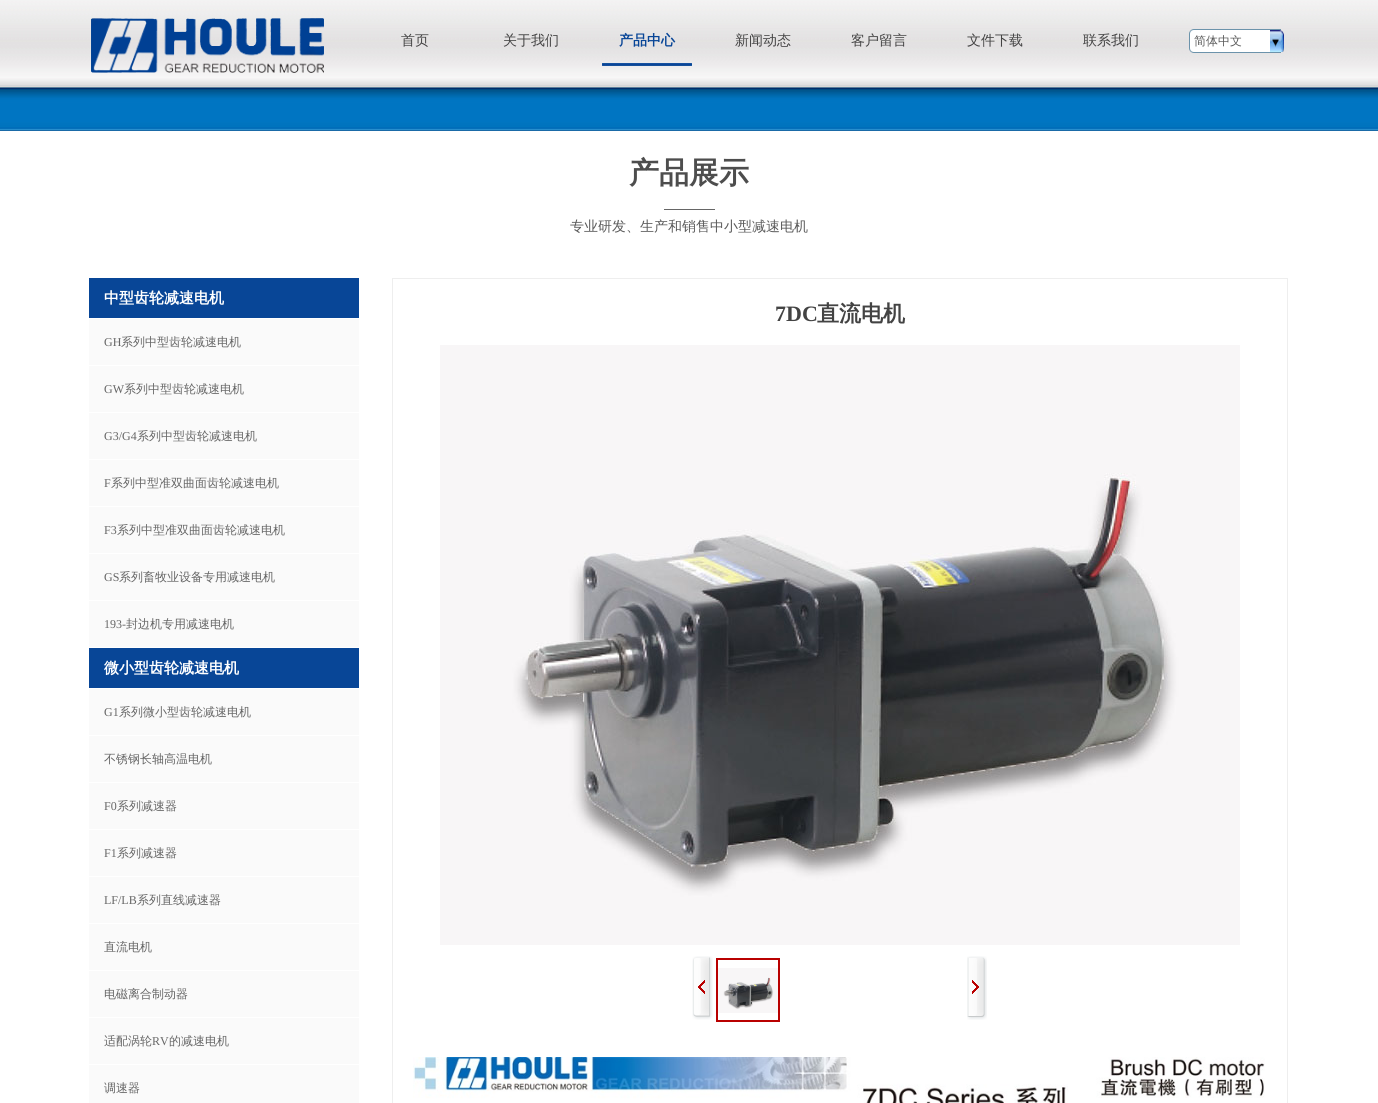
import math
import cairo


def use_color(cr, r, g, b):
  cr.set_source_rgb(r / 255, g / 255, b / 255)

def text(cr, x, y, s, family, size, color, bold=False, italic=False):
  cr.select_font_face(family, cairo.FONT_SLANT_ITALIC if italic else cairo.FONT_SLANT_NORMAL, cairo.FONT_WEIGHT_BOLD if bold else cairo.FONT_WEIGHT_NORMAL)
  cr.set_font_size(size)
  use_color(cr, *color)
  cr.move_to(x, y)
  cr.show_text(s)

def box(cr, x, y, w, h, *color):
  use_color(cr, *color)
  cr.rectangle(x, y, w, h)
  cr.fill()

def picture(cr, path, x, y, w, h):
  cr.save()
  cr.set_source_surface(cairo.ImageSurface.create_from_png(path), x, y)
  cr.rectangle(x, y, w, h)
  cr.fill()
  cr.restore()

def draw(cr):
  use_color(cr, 255, 255, 255)
  cr.paint()
  picture(cr, "img_01.png", 0, 0, 1378, 87)
  picture(cr, "img_02.png", 91, 18, 233, 55)
  picture(cr, "img_03.png", 602, 63, 90, 3)
  picture(cr, "img_04.png", 1189, 29, 92, 24)
  picture(cr, "img_05.png", 1270, 30, 14, 22)
  picture(cr, "img_06.png", 0, 87, 1378, 44)
  box(cr, 664, 209, 51, 1, 102, 102, 102)
  box(cr, 89, 278, 270, 40, 8, 70, 151)
  box(cr, 89, 319, 270, 46, 250, 250, 250)
  box(cr, 89, 366, 270, 46, 250, 250, 250)
  box(cr, 89, 413, 270, 46, 250, 250, 250)
  box(cr, 89, 460, 270, 46, 250, 250, 250)
  box(cr, 89, 507, 270, 46, 250, 250, 250)
  box(cr, 89, 554, 270, 46, 250, 250, 250)
  box(cr, 89, 601, 270, 46, 250, 250, 250)
  box(cr, 89, 648, 270, 40, 8, 70, 151)
  box(cr, 89, 689, 270, 46, 250, 250, 250)
  box(cr, 89, 736, 270, 46, 250, 250, 250)
  box(cr, 89, 783, 270, 46, 250, 250, 250)
  box(cr, 89, 830, 270, 46, 250, 250, 250)
  box(cr, 89, 877, 270, 46, 250, 250, 250)
  box(cr, 89, 924, 270, 46, 250, 250, 250)
  box(cr, 89, 971, 270, 46, 250, 250, 250)
  box(cr, 89, 1018, 270, 46, 250, 250, 250)
  box(cr, 89, 1065, 270, 38, 250, 250, 250)
  cr.rectangle(392.5, 278.5, 895, 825)
  use_color(cr, 238, 238, 238)
  cr.set_line_width(1)
  cr.stroke()
  picture(cr, "img_07.png", 440, 345, 800, 600)
  picture(cr, "img_08.png", 692, 956, 21, 64)
  cr.rectangle(717, 959, 62, 62)
  use_color(cr, 185, 0, 0)
  cr.set_line_width(2)
  cr.stroke()
  picture(cr, "img_09.png", 718, 968, 60, 45)
  picture(cr, "img_10.png", 967, 956, 20, 64)
  picture(cr, "img_11.png", 413, 1057, 852, 46)
  text(cr, 401, 45, "首页", "WenQuanYi Zen Hei Medium", 14, (67, 67, 67))
  text(cr, 503, 45, "关于我们", "WenQuanYi Zen Hei Medium", 14, (67, 67, 67))
  text(cr, 619, 45, "产品中心", "WenQuanYi Zen Hei", 14, (8, 70, 151), bold=True)
  text(cr, 735, 45, "新闻动态", "WenQuanYi Zen Hei Medium", 14, (67, 67, 67))
  text(cr, 851, 45, "客户留言", "WenQuanYi Zen Hei Medium", 14, (67, 67, 67))
  text(cr, 967, 45, "文件下载", "WenQuanYi Zen Hei Medium", 14, (67, 67, 67))
  text(cr, 1083, 45, "联系我们", "WenQuanYi Zen Hei Medium", 14, (67, 67, 67))
  text(cr, 1194, 45, "简体中文", "WenQuanYi Zen Hei Medium", 12, (90, 90, 90))
  text(cr, 629, 183, "产品展示", "WenQuanYi Zen Hei", 30, (77, 77, 77), bold=True)
  text(cr, 570, 231, "专业研发、生产和销售中小型减速电机", "WenQuanYi Zen Hei Medium", 14, (90, 90, 90))
  text(cr, 104, 303, "中型齿轮减速电机", "WenQuanYi Zen Hei", 15, (255, 255, 255), bold=True)
  text(cr, 104, 346, "GH", "Liberation Serif", 12, (102, 102, 102))
  text(cr, 121, 346, "系列中型齿轮减速电机", "WenQuanYi Zen Hei Medium", 12, (102, 102, 102))
  text(cr, 104, 393, "GW", "Liberation Serif", 12, (102, 102, 102))
  text(cr, 124, 393, "系列中型齿轮减速电机", "WenQuanYi Zen Hei Medium", 12, (102, 102, 102))
  text(cr, 104, 440, "G3/G4", "Liberation Serif", 12, (102, 102, 102))
  text(cr, 137, 440, "系列中型齿轮减速电机", "WenQuanYi Zen Hei Medium", 12, (102, 102, 102))
  text(cr, 104, 487, "F", "Liberation Serif", 12, (102, 102, 102))
  text(cr, 111, 487, "系列中型准双曲面齿轮减速电机", "WenQuanYi Zen Hei Medium", 12, (102, 102, 102))
  text(cr, 104, 534, "F3", "Liberation Serif", 12, (102, 102, 102))
  text(cr, 117, 534, "系列中型准双曲面齿轮减速电机", "WenQuanYi Zen Hei Medium", 12, (102, 102, 102))
  text(cr, 104, 581, "GS", "Liberation Serif", 12, (102, 102, 102))
  text(cr, 119, 581, "系列畜牧业设备专用减速电机", "WenQuanYi Zen Hei Medium", 12, (102, 102, 102))
  text(cr, 104, 628, "193-", "Liberation Serif", 12, (102, 102, 102))
  text(cr, 126, 628, "封边机专用减速电机", "WenQuanYi Zen Hei Medium", 12, (102, 102, 102))
  text(cr, 104, 673, "微小型齿轮减速电机", "WenQuanYi Zen Hei", 15, (255, 255, 255), bold=True)
  text(cr, 104, 716, "G1", "Liberation Serif", 12, (102, 102, 102))
  text(cr, 119, 716, "系列微小型齿轮减速电机", "WenQuanYi Zen Hei Medium", 12, (102, 102, 102))
  text(cr, 104, 763, "不锈钢长轴高温电机", "WenQuanYi Zen Hei Medium", 12, (102, 102, 102))
  text(cr, 104, 810, "F0", "Liberation Serif", 12, (102, 102, 102))
  text(cr, 117, 810, "系列减速器", "WenQuanYi Zen Hei Medium", 12, (102, 102, 102))
  text(cr, 104, 857, "F1", "Liberation Serif", 12, (102, 102, 102))
  text(cr, 117, 857, "系列减速器", "WenQuanYi Zen Hei Medium", 12, (102, 102, 102))
  text(cr, 104, 904, "LF/LB", "Liberation Serif", 12, (102, 102, 102))
  text(cr, 137, 904, "系列直线减速器", "WenQuanYi Zen Hei Medium", 12, (102, 102, 102))
  text(cr, 104, 951, "直流电机", "WenQuanYi Zen Hei Medium", 12, (102, 102, 102))
  text(cr, 104, 998, "电磁离合制动器", "WenQuanYi Zen Hei Medium", 12, (102, 102, 102))
  text(cr, 104, 1045, "适配涡轮", "WenQuanYi Zen Hei Medium", 12, (102, 102, 102))
  text(cr, 152, 1045, "RV", "Liberation Serif", 12, (102, 102, 102))
  text(cr, 169, 1045, "的减速电机", "WenQuanYi Zen Hei Medium", 12, (102, 102, 102))
  text(cr, 104, 1092, "调速器", "WenQuanYi Zen Hei Medium", 12, (102, 102, 102))
  text(cr, 775, 321, "7DC", "Liberation Serif", 22, (67, 67, 67), bold=True)
  text(cr, 817, 321, "直流电机", "WenQuanYi Zen Hei", 22, (67, 67, 67), bold=True)


surface = cairo.ImageSurface(cairo.FORMAT_RGB24, 1378, 1103)
cr = cairo.Context(surface)
options = cairo.FontOptions()
options.set_hint_metrics(cairo.HINT_METRICS_OFF)
options.set_hint_style(cairo.HINT_STYLE_NONE)
cr.set_font_options(options)
cr.set_miter_limit(4)
draw(cr)
surface.write_to_png("out.png")
